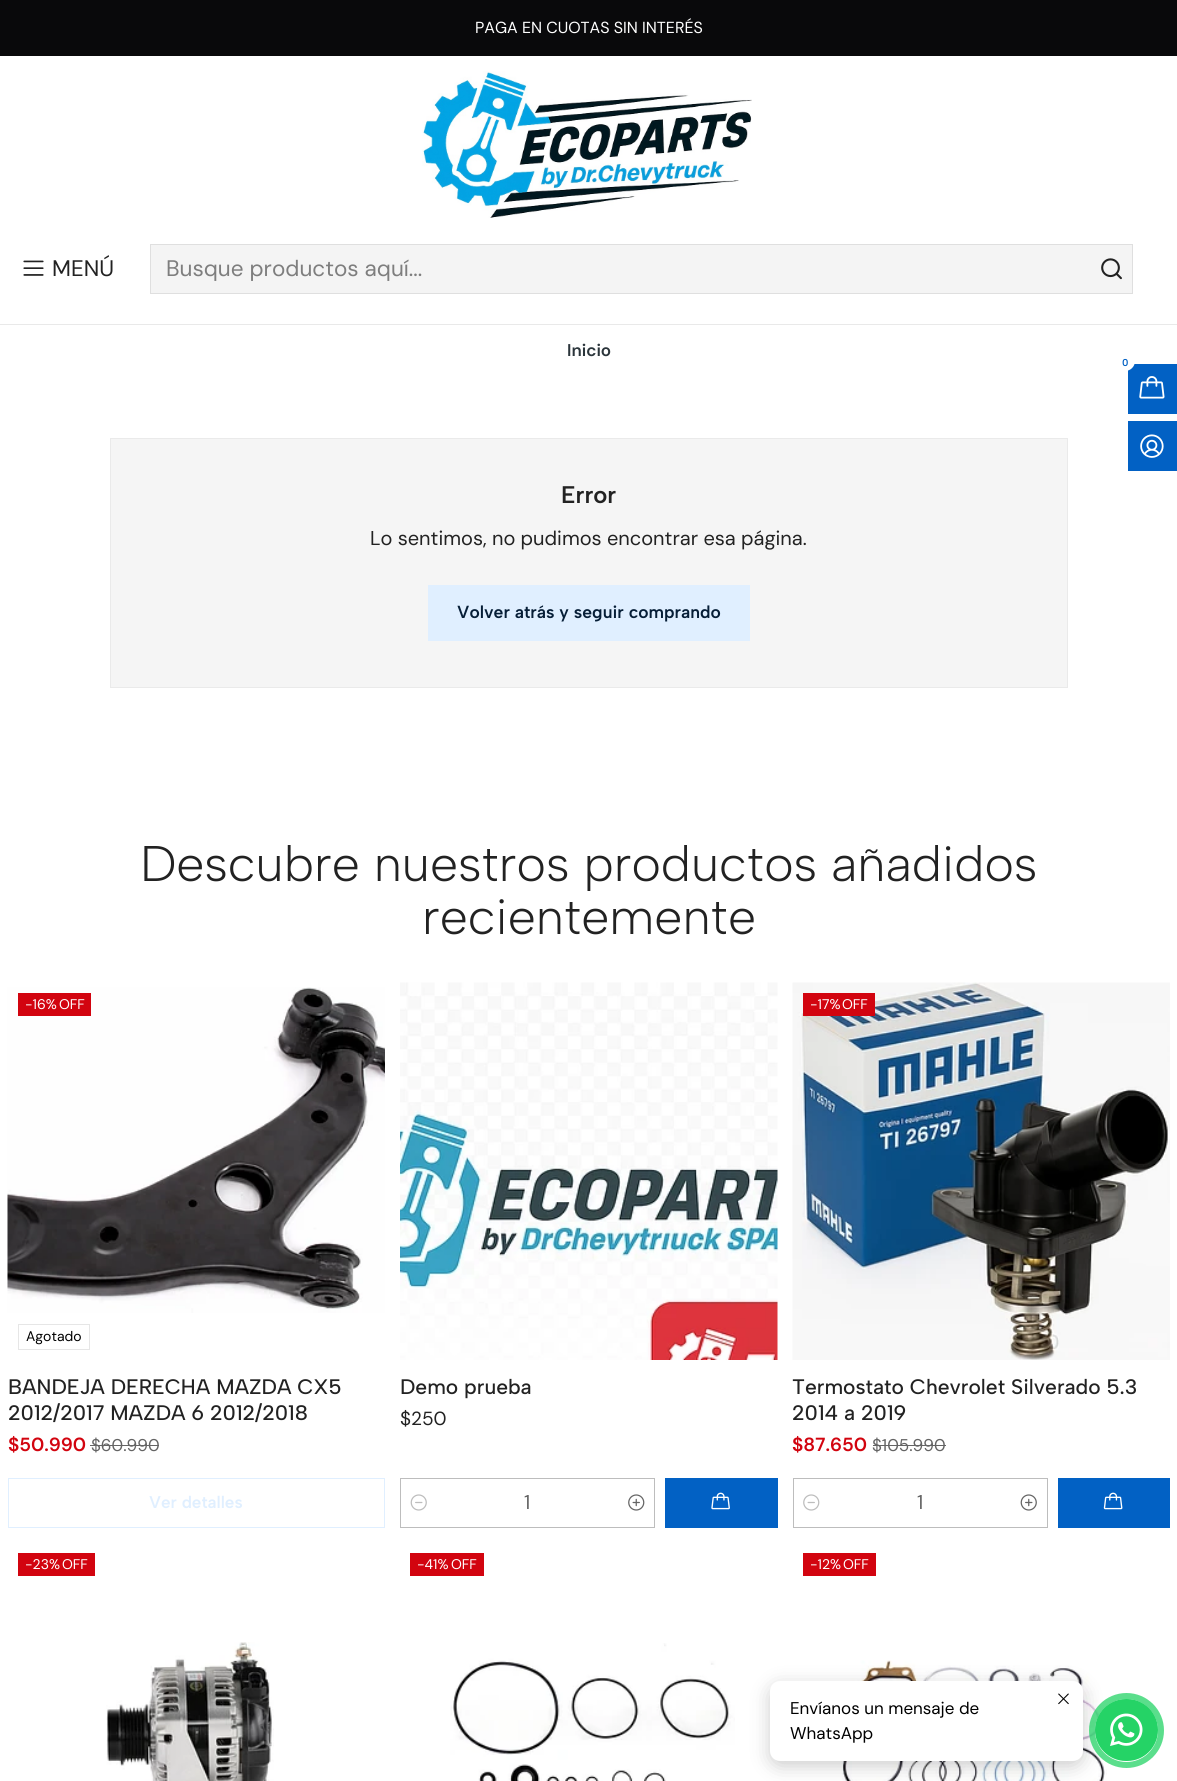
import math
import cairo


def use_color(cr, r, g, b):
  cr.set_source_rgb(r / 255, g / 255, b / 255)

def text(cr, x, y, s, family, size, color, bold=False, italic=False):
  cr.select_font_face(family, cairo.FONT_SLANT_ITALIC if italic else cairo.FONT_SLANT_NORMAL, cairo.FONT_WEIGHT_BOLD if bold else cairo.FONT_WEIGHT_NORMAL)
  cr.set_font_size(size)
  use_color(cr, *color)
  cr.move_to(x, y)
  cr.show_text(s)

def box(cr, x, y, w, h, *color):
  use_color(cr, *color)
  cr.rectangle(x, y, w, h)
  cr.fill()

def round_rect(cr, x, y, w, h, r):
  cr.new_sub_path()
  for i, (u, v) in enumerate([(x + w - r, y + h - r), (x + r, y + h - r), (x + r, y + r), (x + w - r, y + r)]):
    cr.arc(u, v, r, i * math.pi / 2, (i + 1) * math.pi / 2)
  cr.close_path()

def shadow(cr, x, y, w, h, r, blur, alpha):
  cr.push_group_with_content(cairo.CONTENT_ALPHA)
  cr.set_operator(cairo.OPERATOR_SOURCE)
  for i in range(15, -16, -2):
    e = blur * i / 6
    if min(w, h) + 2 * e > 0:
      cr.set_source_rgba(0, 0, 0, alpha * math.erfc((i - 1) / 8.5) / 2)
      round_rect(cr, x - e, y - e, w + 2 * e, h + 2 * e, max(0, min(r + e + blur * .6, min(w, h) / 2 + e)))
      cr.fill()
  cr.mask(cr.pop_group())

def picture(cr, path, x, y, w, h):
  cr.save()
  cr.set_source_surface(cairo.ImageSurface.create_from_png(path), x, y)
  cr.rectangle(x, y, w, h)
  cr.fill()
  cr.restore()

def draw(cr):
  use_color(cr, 255, 255, 255)
  cr.paint()
  box(cr, 0, 0, 1177, 56, 9, 9, 11)
  box(cr, 0, 324, 1177, 1, 233, 233, 233)
  picture(cr, "img_01.png", 422, 71, 330, 147)
  picture(cr, "img_02.png", 23, 260, 21, 16)
  use_color(cr, 244, 244, 244)
  cr.rectangle(150.5, 244.5, 982, 49)
  cr.fill_preserve()
  use_color(cr, 223, 223, 223)
  cr.set_line_width(1)
  cr.stroke()
  picture(cr, "img_03.png", 1101, 258, 21, 22)
  box(cr, 1128, 364, 49, 50, 2, 97, 196)
  use_color(cr, 255, 255, 255)
  cr.arc(1125, 361, 10, 0, 2 * math.pi)
  cr.fill()
  picture(cr, "img_04.png", 1139, 376, 26, 23)
  box(cr, 1128, 421, 49, 50, 2, 97, 196)
  picture(cr, "img_05.png", 1140, 434, 24, 24)
  use_color(cr, 245, 245, 245)
  cr.rectangle(110.5, 438.5, 957, 249)
  cr.fill_preserve()
  use_color(cr, 234, 234, 234)
  cr.stroke()
  box(cr, 428, 585, 322, 56, 224, 239, 255)
  picture(cr, "img_06.png", 7, 987, 378, 326)
  box(cr, 18, 993, 73, 23, 210, 4, 15)
  cr.rectangle(18.5, 1324.5, 71, 25)
  use_color(cr, 230, 230, 230)
  cr.stroke()
  box(cr, 90, 1445, 69, 1, 100, 100, 100)
  cr.rectangle(8.5, 1478.5, 376, 49)
  use_color(cr, 224, 239, 255)
  cr.stroke()
  picture(cr, "img_07.png", 400, 982, 378, 378)
  cr.rectangle(400.5, 1478.5, 254, 49)
  use_color(cr, 189, 189, 189)
  cr.stroke()
  picture(cr, "img_08.png", 410, 1494, 17, 17)
  picture(cr, "img_09.png", 628, 1494, 17, 17)
  box(cr, 665, 1478, 113, 50, 2, 97, 196)
  picture(cr, "img_10.png", 711, 1492, 19, 18)
  picture(cr, "img_11.png", 792, 982, 378, 378)
  box(cr, 803, 993, 72, 23, 210, 4, 15)
  box(cr, 873, 1445, 73, 1, 100, 100, 100)
  cr.rectangle(793.5, 1478.5, 254, 49)
  use_color(cr, 189, 189, 189)
  cr.stroke()
  picture(cr, "img_12.png", 803, 1494, 17, 17)
  picture(cr, "img_13.png", 1020, 1494, 17, 17)
  box(cr, 1058, 1478, 112, 50, 2, 97, 196)
  picture(cr, "img_14.png", 1103, 1492, 20, 18)
  box(cr, 18, 1553, 77, 23, 210, 4, 15)
  picture(cr, "img_15.png", 106, 1642, 168, 139)
  box(cr, 410, 1553, 74, 23, 210, 4, 15)
  picture(cr, "img_16.png", 450, 1643, 285, 138)
  box(cr, 803, 1553, 73, 23, 210, 4, 15)
  picture(cr, "img_17.png", 842, 1660, 265, 121)
  use_color(cr, 0, 0, 0)
  shadow(cr, 770, 1686, 313, 80, 10, 9.5, 0.2)
  use_color(cr, 255, 255, 255)
  round_rect(cr, 770, 1681, 313, 80, 10)
  cr.fill()
  picture(cr, "img_18.png", 1058, 1693, 11, 12)
  use_color(cr, 37, 211, 102)
  round_rect(cr, 1095, 1699, 63, 62, 31)
  cr.fill()
  picture(cr, "img_19.png", 1110, 1713, 33, 33)
  cr.arc(1126.5, 1730.5, 34.5, 0, 2 * math.pi)
  cr.set_source_rgba(0.145, 0.827, 0.4, 0.75)
  cr.set_line_width(6)
  cr.stroke()
  text(cr, 475, 33, "PAGA EN CUOTAS SIN INTERÉS", "DM Sans", 16, (255, 255, 255))
  text(cr, 52, 276, "MENÚ", "DM Sans", 22.5, (34, 34, 34))
  text(cr, 166, 276, "Busque productos aquí...", "DM Sans", 22.5, (126, 126, 126))
  text(cr, 1122, 366, "0", "Albert Sans SemiBold", 10, (2, 97, 196))
  text(cr, 567, 356, "Inicio", "DM Sans SemiBold", 17, (43, 53, 59))
  text(cr, 561, 503, "Error", "Albert Sans SemiBold", 24, (34, 34, 34))
  text(cr, 370, 545, "Lo sentimos, no pudimos encontrar esa página.", "DM Sans", 20, (34, 34, 34))
  text(cr, 457, 618, "Volver atrás y seguir comprando", "Albert Sans SemiBold", 17.5, (6, 30, 55))
  text(cr, 140, 881, "Descubre nuestros productos añadidos", "Albert Sans Light", 50, (34, 34, 34))
  text(cr, 422, 934, "recientemente", "Albert Sans Light", 50, (34, 34, 34))
  text(cr, 25, 1009, "-16%", "DM Sans", 14, (255, 255, 255))
  text(cr, 59, 1009, "OFF", "DM Sans", 14, (255, 255, 255))
  text(cr, 26, 1341, "Agotado", "DM Sans", 14, (0, 0, 0))
  text(cr, 8, 1394, "BANDEJA DERECHA MAZDA CX5", "Albert Sans Medium", 21, (34, 34, 34))
  text(cr, 8, 1420, "2012/2017 MAZDA 6 2012/2018", "Albert Sans Medium", 21, (34, 34, 34))
  text(cr, 8, 1451, "$50.990", "DM Sans SemiBold", 19, (210, 4, 15))
  text(cr, 91, 1451, "$60.990", "DM Sans", 17, (100, 100, 100))
  text(cr, 149, 1508, "Ver detalles", "Albert Sans SemiBold", 17, (224, 239, 255))
  text(cr, 400, 1394, "Demo prueba", "Albert Sans Medium", 21, (34, 34, 34))
  text(cr, 400, 1425, "$250", "DM Sans", 19, (34, 34, 34))
  text(cr, 524, 1509, "1", "DM Sans", 20, (100, 100, 100))
  text(cr, 810, 1009, "-17%", "DM Sans", 14, (255, 255, 255))
  text(cr, 842, 1009, "OFF", "DM Sans", 14, (255, 255, 255))
  text(cr, 792, 1394, "Termostato Chevrolet Silverado 5.3", "Albert Sans Medium", 21, (34, 34, 34))
  text(cr, 792, 1420, "2014 a 2019", "Albert Sans Medium", 21, (34, 34, 34))
  text(cr, 792, 1451, "$87.650", "DM Sans SemiBold", 19, (210, 4, 15))
  text(cr, 872, 1451, "$105.990", "DM Sans", 17, (100, 100, 100))
  text(cr, 917, 1509, "1", "DM Sans", 20, (100, 100, 100))
  text(cr, 25, 1569, "-23%", "DM Sans", 14, (255, 255, 255))
  text(cr, 62, 1569, "OFF", "DM Sans", 14, (255, 255, 255))
  text(cr, 417, 1569, "-41%", "DM Sans", 14, (255, 255, 255))
  text(cr, 451, 1569, "OFF", "DM Sans", 14, (255, 255, 255))
  text(cr, 810, 1569, "-12%", "DM Sans", 14, (255, 255, 255))
  text(cr, 843, 1569, "OFF", "DM Sans", 14, (255, 255, 255))
  text(cr, 790, 1714, "Envíanos un mensaje de", "DM Sans", 17, (0, 0, 0))
  text(cr, 790, 1739, "WhatsApp", "DM Sans", 17, (0, 0, 0))


surface = cairo.ImageSurface(cairo.FORMAT_RGB24, 1177, 1781)
cr = cairo.Context(surface)
options = cairo.FontOptions()
options.set_hint_metrics(cairo.HINT_METRICS_OFF)
options.set_hint_style(cairo.HINT_STYLE_NONE)
cr.set_font_options(options)
cr.set_miter_limit(4)
draw(cr)
surface.write_to_png("out.png")
